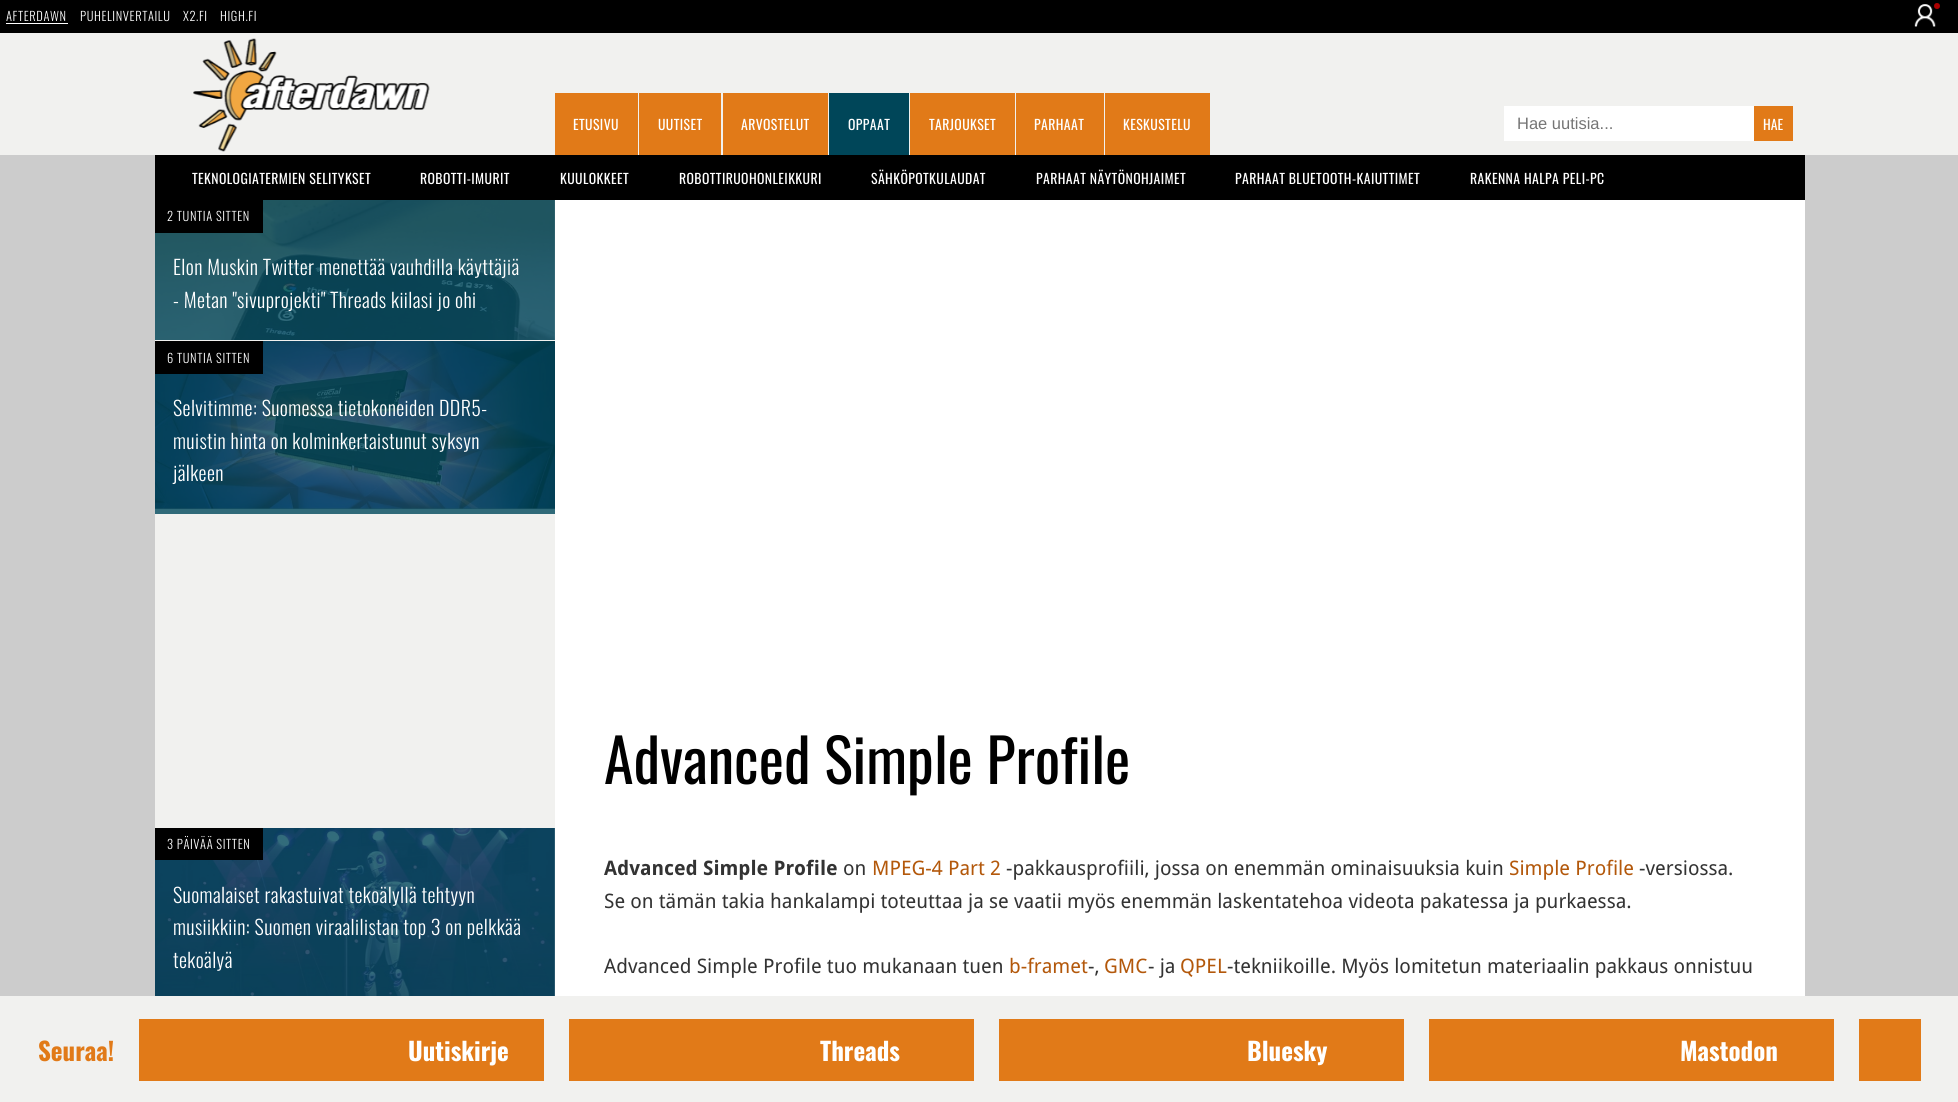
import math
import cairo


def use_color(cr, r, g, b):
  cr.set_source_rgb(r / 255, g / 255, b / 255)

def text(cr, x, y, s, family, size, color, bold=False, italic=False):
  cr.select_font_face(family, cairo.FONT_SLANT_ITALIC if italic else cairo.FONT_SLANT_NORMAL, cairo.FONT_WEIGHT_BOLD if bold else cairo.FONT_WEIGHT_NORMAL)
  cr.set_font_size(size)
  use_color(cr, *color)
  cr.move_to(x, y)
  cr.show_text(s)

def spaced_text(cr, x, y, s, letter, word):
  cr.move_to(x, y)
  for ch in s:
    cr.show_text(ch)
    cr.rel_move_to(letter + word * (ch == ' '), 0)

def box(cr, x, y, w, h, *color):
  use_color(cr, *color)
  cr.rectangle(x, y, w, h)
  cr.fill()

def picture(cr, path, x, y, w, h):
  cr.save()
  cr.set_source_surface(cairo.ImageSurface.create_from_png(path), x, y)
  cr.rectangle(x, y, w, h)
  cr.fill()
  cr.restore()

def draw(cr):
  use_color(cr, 204, 204, 204)
  cr.paint()
  box(cr, 0, 33, 1958, 122, 241, 241, 239)
  box(cr, 0, 0, 1958, 33, 0, 0, 0)
  box(cr, 6, 23, 62, 1, 255, 255, 255)
  picture(cr, "img_01.png", 1914, 4, 22, 23)
  use_color(cr, 172, 0, 0)
  cr.arc(1937, 6, 3, 0, 2 * math.pi)
  cr.fill()
  picture(cr, "img_02.png", 193, 38, 237, 114)
  box(cr, 555, 93, 83, 62, 225, 122, 24)
  box(cr, 639, 93, 82, 62, 225, 122, 24)
  box(cr, 723, 93, 105, 62, 225, 122, 24)
  box(cr, 829, 93, 80, 62, 0, 70, 89)
  box(cr, 910, 93, 105, 62, 225, 122, 24)
  box(cr, 1016, 93, 88, 62, 225, 122, 24)
  box(cr, 1105, 93, 105, 62, 225, 122, 24)
  box(cr, 1504, 106, 250, 35, 255, 255, 255)
  box(cr, 1754, 106, 39, 35, 225, 122, 24)
  box(cr, 155, 155, 1650, 45, 0, 0, 0)
  box(cr, 155, 200, 400, 796, 241, 241, 239)
  box(cr, 155, 508, 400, 6, 48, 106, 121)
  picture(cr, "img_03.png", 155, 200, 400, 140)
  box(cr, 155, 200, 108, 33, 0, 0, 0)
  picture(cr, "img_04.png", 155, 341, 400, 168)
  box(cr, 155, 341, 108, 33, 0, 0, 0)
  picture(cr, "img_05.png", 155, 828, 400, 168)
  box(cr, 155, 828, 108, 32, 0, 0, 0)
  box(cr, 555, 200, 1250, 796, 255, 255, 255)
  box(cr, 0, 996, 1958, 106, 241, 241, 239)
  box(cr, 139, 1019, 405, 62, 225, 122, 24)
  box(cr, 569, 1019, 405, 62, 225, 122, 24)
  box(cr, 999, 1019, 405, 62, 225, 122, 24)
  box(cr, 1429, 1019, 405, 62, 225, 122, 24)
  box(cr, 1859, 1019, 62, 62, 225, 122, 24)
  cr.select_font_face("Oswald Light")
  cr.set_font_size(12.5)
  use_color(cr, 255, 255, 255)
  spaced_text(cr, 6, 21, "AFTERDAWN", 0.6, 0)
  spaced_text(cr, 80, 21, "PUHELINVERTAILU", 0.6, 0)
  spaced_text(cr, 183, 21, "X2.FI", 0.6, 0)
  spaced_text(cr, 220, 21, "HIGH.FI", 0.6, 0)
  cr.select_font_face("Oswald")
  cr.set_font_size(13.75)
  spaced_text(cr, 573, 130, "ETUSIVU", 0.4, 0)
  spaced_text(cr, 658, 130, "UUTISET", 0.4, 0)
  spaced_text(cr, 741, 130, "ARVOSTELUT", 0.4, 0)
  spaced_text(cr, 848, 130, "OPPAAT", 0.4, 0)
  spaced_text(cr, 929, 130, "TARJOUKSET", 0.4, 0)
  spaced_text(cr, 1034, 130, "PARHAAT", 0.4, 0)
  spaced_text(cr, 1123, 130, "KESKUSTELU", 0.4, 0)
  text(cr, 1517, 129, "Hae uutisia...", "Liberation Sans", 16.5, (117, 117, 117))
  text(cr, 1763, 130, "HAE", "Oswald", 13.75, (255, 255, 255))
  spaced_text(cr, 192, 184, "TEKNOLOGIATERMIEN SELITYKSET", 0.4, 0)
  spaced_text(cr, 420, 184, "ROBOTTI-IMURIT", 0.4, 0)
  spaced_text(cr, 560, 184, "KUULOKKEET", 0.4, 0)
  spaced_text(cr, 679, 184, "ROBOTTIRUOHONLEIKKURI", 0.4, 0)
  spaced_text(cr, 871, 184, "SÄHKÖPOTKULAUDAT", 0.4, 0)
  spaced_text(cr, 1036, 184, "PARHAAT NÄYTÖNOHJAIMET", 0.4, 0)
  spaced_text(cr, 1235, 184, "PARHAAT BLUETOOTH-KAIUTTIMET", 0.4, 0)
  spaced_text(cr, 1470, 184, "RAKENNA HALPA PELI-PC", 0.4, 0)
  cr.select_font_face("Oswald Light")
  cr.set_font_size(12.5)
  spaced_text(cr, 167, 221, "2 TUNTIA SITTEN", 0.6, 0)
  cr.set_font_size(20)
  spaced_text(cr, 173, 275, "Elon Muskin Twitter menettää vauhdilla käyttäjiä", 0.4, 0)
  spaced_text(cr, 173, 308, "- Metan \"sivuprojekti\" Threads kiilasi jo ohi", 0.4, 0)
  cr.set_font_size(12.5)
  spaced_text(cr, 167, 363, "6 TUNTIA SITTEN", 0.6, 0)
  cr.set_font_size(20)
  spaced_text(cr, 173, 416, "Selvitimme: Suomessa tietokoneiden DDR5-", 0.4, 0)
  spaced_text(cr, 173, 449, "muistin hinta on kolminkertaistunut syksyn", 0.4, 0)
  spaced_text(cr, 173, 481, "jälkeen", 0.4, 0)
  cr.set_font_size(12.5)
  spaced_text(cr, 167, 849, "3 PÄIVÄÄ SITTEN", 0.6, 0)
  cr.set_font_size(20)
  spaced_text(cr, 173, 903, "Suomalaiset rakastuivat tekoälyllä tehtyyn", 0.4, 0)
  spaced_text(cr, 173, 935, "musiikkiin: Suomen viraalilistan top 3 on pelkkää", 0.4, 0)
  spaced_text(cr, 173, 968, "tekoälyä", 0.4, 0)
  text(cr, 604, 784, "Advanced Simple Profile", "Oswald", 60, (0, 0, 0))
  text(cr, 604, 875, "Advanced Simple Profile", "Droid Sans", 20, (51, 51, 51), bold=True)
  text(cr, 843, 875, "on", "Droid Sans", 20, (51, 51, 51))
  text(cr, 872, 875, "MPEG-4 Part 2", "Droid Sans", 20, (179, 88, 11))
  text(cr, 1006, 875, "-pakkausprofiili, jossa on enemmän ominaisuuksia kuin", "Droid Sans", 20, (51, 51, 51))
  text(cr, 1509, 875, "Simple Profile", "Droid Sans", 20, (179, 88, 11))
  text(cr, 1639, 875, "-versiossa.", "Droid Sans", 20, (51, 51, 51))
  text(cr, 604, 908, "Se on tämän takia hankalampi toteuttaa ja se vaatii myös enemmän laskentatehoa videota pakatessa ja purkaessa.", "Droid Sans", 20, (51, 51, 51))
  text(cr, 604, 973, "Advanced Simple Profile tuo mukanaan tuen", "Droid Sans", 20, (51, 51, 51))
  text(cr, 1009, 973, "b-framet", "Droid Sans", 20, (179, 88, 11))
  text(cr, 1088, 973, "-,", "Droid Sans", 20, (51, 51, 51))
  text(cr, 1104, 973, "GMC", "Droid Sans", 20, (179, 88, 11))
  text(cr, 1148, 973, "- ja", "Droid Sans", 20, (51, 51, 51))
  text(cr, 1180, 973, "QPEL", "Droid Sans", 20, (179, 88, 11))
  text(cr, 1227, 973, "-tekniikoille. Myös lomitetun materiaalin pakkaus onnistuu", "Droid Sans", 20, (51, 51, 51))
  text(cr, 38, 1061, "Seuraa!", "Oswald", 25, (225, 122, 24), bold=True)
  text(cr, 408, 1061, "Uutiskirje", "Oswald", 25, (255, 255, 255), bold=True)
  text(cr, 820, 1061, "Threads", "Oswald", 25, (255, 255, 255), bold=True)
  text(cr, 1247, 1061, "Bluesky", "Oswald", 25, (255, 255, 255), bold=True)
  text(cr, 1680, 1061, "Mastodon", "Oswald", 25, (255, 255, 255), bold=True)


surface = cairo.ImageSurface(cairo.FORMAT_RGB24, 1958, 1102)
cr = cairo.Context(surface)
options = cairo.FontOptions()
options.set_hint_metrics(cairo.HINT_METRICS_OFF)
options.set_hint_style(cairo.HINT_STYLE_NONE)
cr.set_font_options(options)
cr.set_miter_limit(4)
draw(cr)
surface.write_to_png("out.png")
